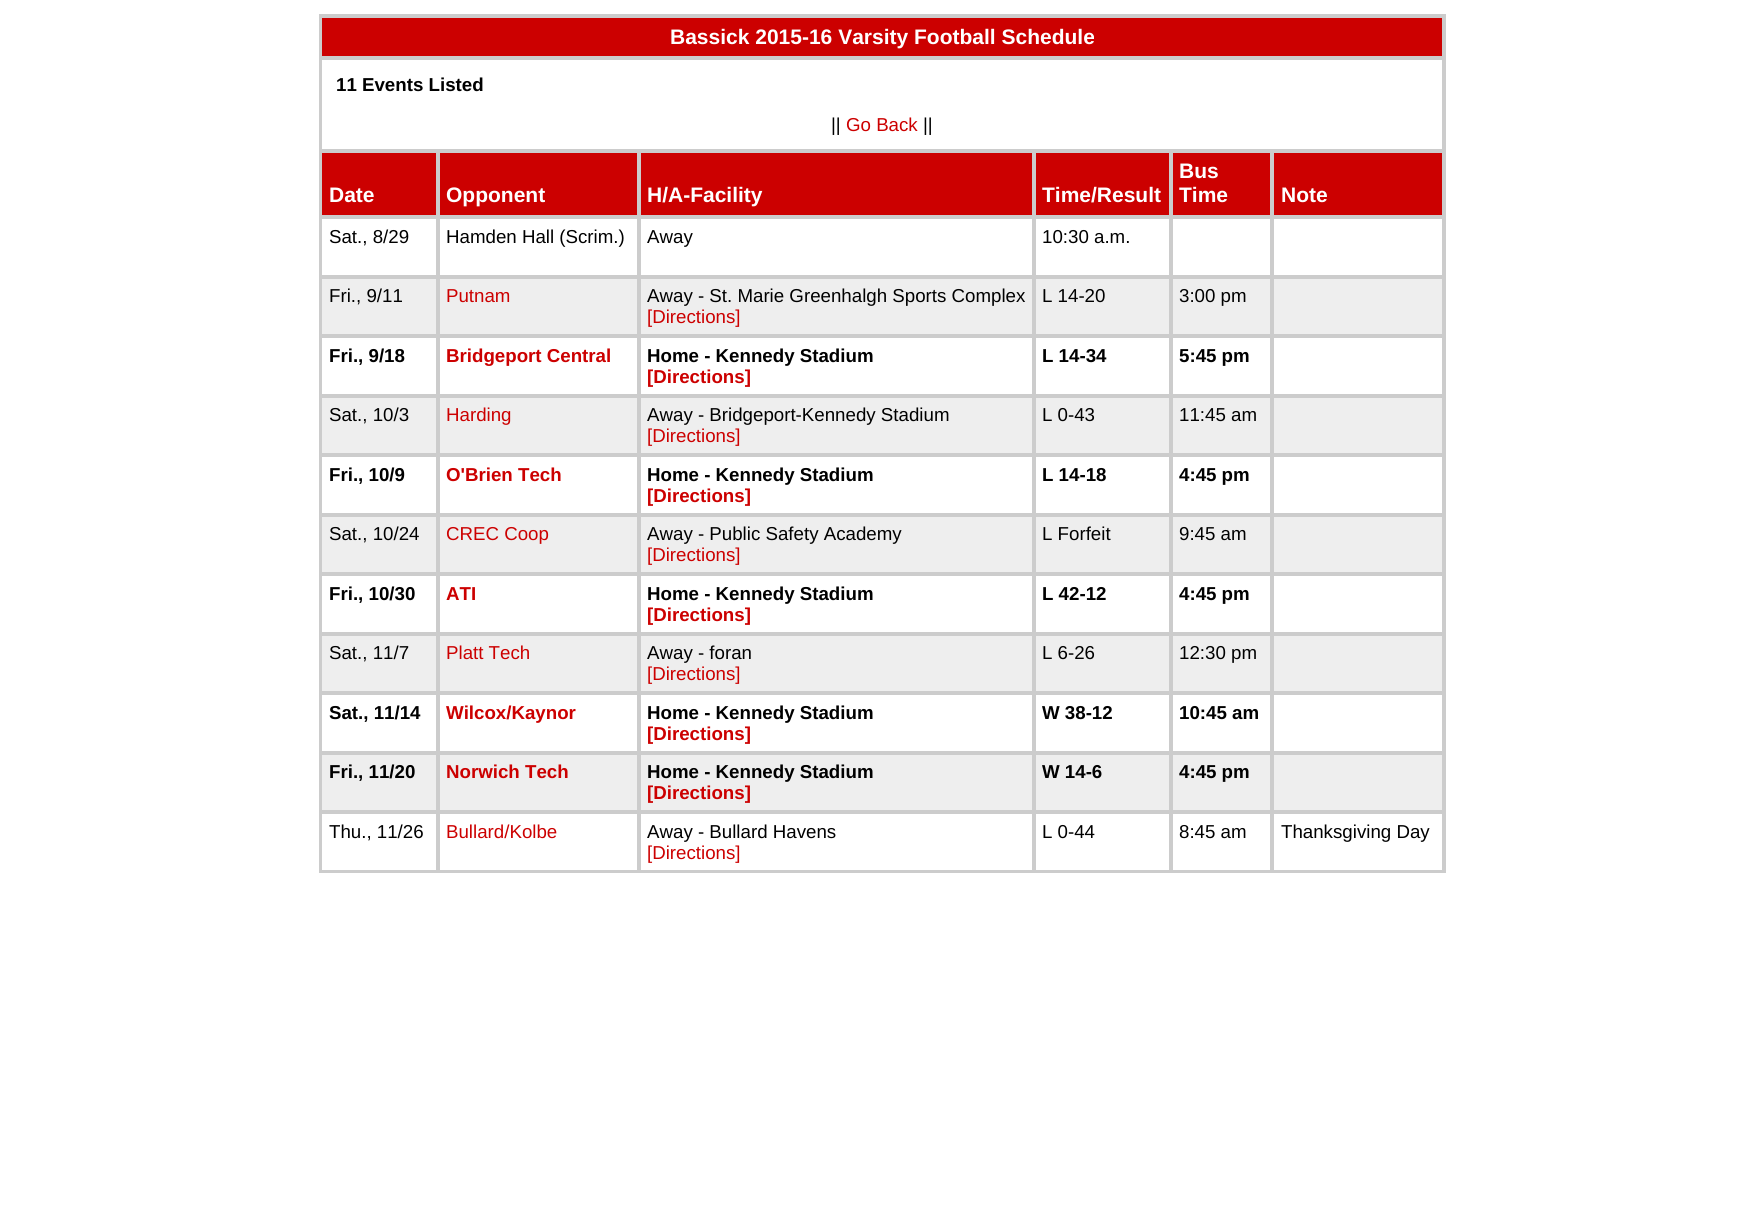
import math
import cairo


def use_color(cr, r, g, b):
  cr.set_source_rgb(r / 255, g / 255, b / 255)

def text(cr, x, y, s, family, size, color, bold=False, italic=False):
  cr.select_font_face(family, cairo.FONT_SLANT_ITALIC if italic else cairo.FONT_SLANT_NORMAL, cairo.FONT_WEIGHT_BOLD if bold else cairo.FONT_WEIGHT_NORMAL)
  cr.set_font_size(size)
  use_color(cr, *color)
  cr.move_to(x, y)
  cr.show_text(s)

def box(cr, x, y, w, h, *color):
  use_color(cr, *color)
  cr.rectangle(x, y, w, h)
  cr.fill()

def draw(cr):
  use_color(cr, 255, 255, 255)
  cr.paint()
  box(cr, 319, 14, 1127, 859, 204, 204, 204)
  box(cr, 322, 18, 1120, 38, 204, 0, 0)
  box(cr, 322, 60, 1120, 89, 255, 255, 255)
  box(cr, 322, 153, 114, 62, 204, 0, 0)
  box(cr, 440, 153, 197, 62, 204, 0, 0)
  box(cr, 641, 153, 391, 62, 204, 0, 0)
  box(cr, 1036, 153, 133, 62, 204, 0, 0)
  box(cr, 1173, 153, 97, 62, 204, 0, 0)
  box(cr, 1274, 153, 168, 62, 204, 0, 0)
  box(cr, 322, 219, 1120, 56, 255, 255, 255)
  cr.rectangle(321, 218, 116, 58)
  use_color(cr, 204, 204, 204)
  cr.stroke()
  cr.rectangle(439, 218, 199, 58)
  cr.stroke()
  cr.rectangle(640, 218, 393, 58)
  cr.stroke()
  cr.rectangle(1035, 218, 135, 58)
  cr.stroke()
  cr.rectangle(1172, 218, 99, 58)
  cr.stroke()
  cr.rectangle(1273, 218, 170, 58)
  cr.stroke()
  box(cr, 322, 279, 1120, 55, 238, 238, 238)
  cr.rectangle(321, 278, 116, 57)
  use_color(cr, 204, 204, 204)
  cr.stroke()
  cr.rectangle(439, 278, 199, 57)
  cr.stroke()
  cr.rectangle(640, 278, 393, 57)
  cr.stroke()
  cr.rectangle(1035, 278, 135, 57)
  cr.stroke()
  cr.rectangle(1172, 278, 99, 57)
  cr.stroke()
  cr.rectangle(1273, 278, 170, 57)
  cr.stroke()
  box(cr, 322, 338, 1120, 56, 255, 255, 255)
  cr.rectangle(321, 337, 116, 58)
  use_color(cr, 204, 204, 204)
  cr.stroke()
  cr.rectangle(439, 337, 199, 58)
  cr.stroke()
  cr.rectangle(640, 337, 393, 58)
  cr.stroke()
  cr.rectangle(1035, 337, 135, 58)
  cr.stroke()
  cr.rectangle(1172, 337, 99, 58)
  cr.stroke()
  cr.rectangle(1273, 337, 170, 58)
  cr.stroke()
  box(cr, 322, 398, 1120, 55, 238, 238, 238)
  cr.rectangle(321, 397, 116, 57)
  use_color(cr, 204, 204, 204)
  cr.stroke()
  cr.rectangle(439, 397, 199, 57)
  cr.stroke()
  cr.rectangle(640, 397, 393, 57)
  cr.stroke()
  cr.rectangle(1035, 397, 135, 57)
  cr.stroke()
  cr.rectangle(1172, 397, 99, 57)
  cr.stroke()
  cr.rectangle(1273, 397, 170, 57)
  cr.stroke()
  box(cr, 322, 457, 1120, 56, 255, 255, 255)
  cr.rectangle(321, 456, 116, 58)
  use_color(cr, 204, 204, 204)
  cr.stroke()
  cr.rectangle(439, 456, 199, 58)
  cr.stroke()
  cr.rectangle(640, 456, 393, 58)
  cr.stroke()
  cr.rectangle(1035, 456, 135, 58)
  cr.stroke()
  cr.rectangle(1172, 456, 99, 58)
  cr.stroke()
  cr.rectangle(1273, 456, 170, 58)
  cr.stroke()
  box(cr, 322, 517, 1120, 55, 238, 238, 238)
  cr.rectangle(321, 516, 116, 57)
  use_color(cr, 204, 204, 204)
  cr.stroke()
  cr.rectangle(439, 516, 199, 57)
  cr.stroke()
  cr.rectangle(640, 516, 393, 57)
  cr.stroke()
  cr.rectangle(1035, 516, 135, 57)
  cr.stroke()
  cr.rectangle(1172, 516, 99, 57)
  cr.stroke()
  cr.rectangle(1273, 516, 170, 57)
  cr.stroke()
  box(cr, 322, 576, 1120, 56, 255, 255, 255)
  cr.rectangle(321, 575, 116, 58)
  use_color(cr, 204, 204, 204)
  cr.stroke()
  cr.rectangle(439, 575, 199, 58)
  cr.stroke()
  cr.rectangle(640, 575, 393, 58)
  cr.stroke()
  cr.rectangle(1035, 575, 135, 58)
  cr.stroke()
  cr.rectangle(1172, 575, 99, 58)
  cr.stroke()
  cr.rectangle(1273, 575, 170, 58)
  cr.stroke()
  box(cr, 322, 636, 1120, 55, 238, 238, 238)
  cr.rectangle(321, 635, 116, 57)
  use_color(cr, 204, 204, 204)
  cr.stroke()
  cr.rectangle(439, 635, 199, 57)
  cr.stroke()
  cr.rectangle(640, 635, 393, 57)
  cr.stroke()
  cr.rectangle(1035, 635, 135, 57)
  cr.stroke()
  cr.rectangle(1172, 635, 99, 57)
  cr.stroke()
  cr.rectangle(1273, 635, 170, 57)
  cr.stroke()
  box(cr, 322, 695, 1120, 56, 255, 255, 255)
  cr.rectangle(321, 694, 116, 58)
  use_color(cr, 204, 204, 204)
  cr.stroke()
  cr.rectangle(439, 694, 199, 58)
  cr.stroke()
  cr.rectangle(640, 694, 393, 58)
  cr.stroke()
  cr.rectangle(1035, 694, 135, 58)
  cr.stroke()
  cr.rectangle(1172, 694, 99, 58)
  cr.stroke()
  cr.rectangle(1273, 694, 170, 58)
  cr.stroke()
  box(cr, 322, 755, 1120, 55, 238, 238, 238)
  cr.rectangle(321, 754, 116, 57)
  use_color(cr, 204, 204, 204)
  cr.stroke()
  cr.rectangle(439, 754, 199, 57)
  cr.stroke()
  cr.rectangle(640, 754, 393, 57)
  cr.stroke()
  cr.rectangle(1035, 754, 135, 57)
  cr.stroke()
  cr.rectangle(1172, 754, 99, 57)
  cr.stroke()
  cr.rectangle(1273, 754, 170, 57)
  cr.stroke()
  box(cr, 322, 814, 1120, 56, 255, 255, 255)
  cr.rectangle(321, 813, 116, 58)
  use_color(cr, 204, 204, 204)
  cr.stroke()
  cr.rectangle(439, 813, 199, 58)
  cr.stroke()
  cr.rectangle(640, 813, 393, 58)
  cr.stroke()
  cr.rectangle(1035, 813, 135, 58)
  cr.stroke()
  cr.rectangle(1172, 813, 99, 58)
  cr.stroke()
  cr.rectangle(1273, 813, 170, 58)
  cr.stroke()
  text(cr, 670, 44, "Bassick 2015-16 Varsity Football Schedule", "Liberation Sans", 21, (255, 255, 255), bold=True)
  text(cr, 336, 91, "11 Events Listed", "Liberation Sans", 18.7, (0, 0, 0), bold=True)
  text(cr, 831, 131, "||", "Liberation Sans", 18.7, (0, 0, 0))
  text(cr, 846, 131, "Go Back", "Liberation Sans", 18.7, (204, 0, 0))
  text(cr, 923, 131, "||", "Liberation Sans", 18.7, (0, 0, 0))
  text(cr, 329, 202, "Date", "Liberation Sans", 21, (255, 255, 255), bold=True)
  text(cr, 446, 202, "Opponent", "Liberation Sans", 21, (255, 255, 255), bold=True)
  text(cr, 647, 202, "H/A-Facility", "Liberation Sans", 21, (255, 255, 255), bold=True)
  text(cr, 1042, 202, "Time/Result", "Liberation Sans", 21, (255, 255, 255), bold=True)
  text(cr, 1179, 178, "Bus", "Liberation Sans", 21, (255, 255, 255), bold=True)
  text(cr, 1179, 202, "Time", "Liberation Sans", 21, (255, 255, 255), bold=True)
  text(cr, 1281, 202, "Note", "Liberation Sans", 21, (255, 255, 255), bold=True)
  text(cr, 329, 243, "Sat., 8/29", "Liberation Sans", 18.7, (0, 0, 0))
  text(cr, 446, 243, "Hamden Hall (Scrim.)", "Liberation Sans", 18.7, (0, 0, 0))
  text(cr, 647, 243, "Away", "Liberation Sans", 18.7, (0, 0, 0))
  text(cr, 1042, 243, "10:30 a.m.", "Liberation Sans", 18.7, (0, 0, 0))
  text(cr, 329, 302, "Fri., 9/11", "Liberation Sans", 18.7, (0, 0, 0))
  text(cr, 446, 302, "Putnam", "Liberation Sans", 18.7, (204, 0, 0))
  text(cr, 647, 302, "Away - St. Marie Greenhalgh Sports Complex", "Liberation Sans", 18.7, (0, 0, 0))
  text(cr, 647, 323, "[Directions]", "Liberation Sans", 18.7, (204, 0, 0))
  text(cr, 1042, 302, "L 14-20", "Liberation Sans", 18.7, (0, 0, 0))
  text(cr, 1179, 302, "3:00 pm", "Liberation Sans", 18.7, (0, 0, 0))
  text(cr, 329, 362, "Fri., 9/18", "Liberation Sans", 18.7, (0, 0, 0), bold=True)
  text(cr, 446, 362, "Bridgeport Central", "Liberation Sans", 18.7, (204, 0, 0), bold=True)
  text(cr, 647, 362, "Home - Kennedy Stadium", "Liberation Sans", 18.7, (0, 0, 0), bold=True)
  text(cr, 647, 383, "[Directions]", "Liberation Sans", 18.7, (204, 0, 0), bold=True)
  text(cr, 1042, 362, "L 14-34", "Liberation Sans", 18.7, (0, 0, 0), bold=True)
  text(cr, 1179, 362, "5:45 pm", "Liberation Sans", 18.7, (0, 0, 0), bold=True)
  text(cr, 329, 421, "Sat., 10/3", "Liberation Sans", 18.7, (0, 0, 0))
  text(cr, 446, 421, "Harding", "Liberation Sans", 18.7, (204, 0, 0))
  text(cr, 647, 421, "Away - Bridgeport-Kennedy Stadium", "Liberation Sans", 18.7, (0, 0, 0))
  text(cr, 647, 442, "[Directions]", "Liberation Sans", 18.7, (204, 0, 0))
  text(cr, 1042, 421, "L 0-43", "Liberation Sans", 18.7, (0, 0, 0))
  text(cr, 1179, 421, "11:45 am", "Liberation Sans", 18.7, (0, 0, 0))
  text(cr, 329, 481, "Fri., 10/9", "Liberation Sans", 18.7, (0, 0, 0), bold=True)
  text(cr, 446, 481, "O'Brien Tech", "Liberation Sans", 18.7, (204, 0, 0), bold=True)
  text(cr, 647, 481, "Home - Kennedy Stadium", "Liberation Sans", 18.7, (0, 0, 0), bold=True)
  text(cr, 647, 502, "[Directions]", "Liberation Sans", 18.7, (204, 0, 0), bold=True)
  text(cr, 1042, 481, "L 14-18", "Liberation Sans", 18.7, (0, 0, 0), bold=True)
  text(cr, 1179, 481, "4:45 pm", "Liberation Sans", 18.7, (0, 0, 0), bold=True)
  text(cr, 329, 540, "Sat., 10/24", "Liberation Sans", 18.7, (0, 0, 0))
  text(cr, 446, 540, "CREC Coop", "Liberation Sans", 18.7, (204, 0, 0))
  text(cr, 647, 540, "Away - Public Safety Academy", "Liberation Sans", 18.7, (0, 0, 0))
  text(cr, 647, 561, "[Directions]", "Liberation Sans", 18.7, (204, 0, 0))
  text(cr, 1042, 540, "L Forfeit", "Liberation Sans", 18.7, (0, 0, 0))
  text(cr, 1179, 540, "9:45 am", "Liberation Sans", 18.7, (0, 0, 0))
  text(cr, 329, 600, "Fri., 10/30", "Liberation Sans", 18.7, (0, 0, 0), bold=True)
  text(cr, 446, 600, "ATI", "Liberation Sans", 18.7, (204, 0, 0), bold=True)
  text(cr, 647, 600, "Home - Kennedy Stadium", "Liberation Sans", 18.7, (0, 0, 0), bold=True)
  text(cr, 647, 621, "[Directions]", "Liberation Sans", 18.7, (204, 0, 0), bold=True)
  text(cr, 1042, 600, "L 42-12", "Liberation Sans", 18.7, (0, 0, 0), bold=True)
  text(cr, 1179, 600, "4:45 pm", "Liberation Sans", 18.7, (0, 0, 0), bold=True)
  text(cr, 329, 659, "Sat., 11/7", "Liberation Sans", 18.7, (0, 0, 0))
  text(cr, 446, 659, "Platt Tech", "Liberation Sans", 18.7, (204, 0, 0))
  text(cr, 647, 659, "Away - foran", "Liberation Sans", 18.7, (0, 0, 0))
  text(cr, 647, 680, "[Directions]", "Liberation Sans", 18.7, (204, 0, 0))
  text(cr, 1042, 659, "L 6-26", "Liberation Sans", 18.7, (0, 0, 0))
  text(cr, 1179, 659, "12:30 pm", "Liberation Sans", 18.7, (0, 0, 0))
  text(cr, 329, 719, "Sat., 11/14", "Liberation Sans", 18.7, (0, 0, 0), bold=True)
  text(cr, 446, 719, "Wilcox/Kaynor", "Liberation Sans", 18.7, (204, 0, 0), bold=True)
  text(cr, 647, 719, "Home - Kennedy Stadium", "Liberation Sans", 18.7, (0, 0, 0), bold=True)
  text(cr, 647, 740, "[Directions]", "Liberation Sans", 18.7, (204, 0, 0), bold=True)
  text(cr, 1042, 719, "W 38-12", "Liberation Sans", 18.7, (0, 0, 0), bold=True)
  text(cr, 1179, 719, "10:45 am", "Liberation Sans", 18.7, (0, 0, 0), bold=True)
  text(cr, 329, 778, "Fri., 11/20", "Liberation Sans", 18.7, (0, 0, 0), bold=True)
  text(cr, 446, 778, "Norwich Tech", "Liberation Sans", 18.7, (204, 0, 0), bold=True)
  text(cr, 647, 778, "Home - Kennedy Stadium", "Liberation Sans", 18.7, (0, 0, 0), bold=True)
  text(cr, 647, 799, "[Directions]", "Liberation Sans", 18.7, (204, 0, 0), bold=True)
  text(cr, 1042, 778, "W 14-6", "Liberation Sans", 18.7, (0, 0, 0), bold=True)
  text(cr, 1179, 778, "4:45 pm", "Liberation Sans", 18.7, (0, 0, 0), bold=True)
  text(cr, 329, 838, "Thu., 11/26", "Liberation Sans", 18.7, (0, 0, 0))
  text(cr, 446, 838, "Bullard/Kolbe", "Liberation Sans", 18.7, (204, 0, 0))
  text(cr, 647, 838, "Away - Bullard Havens", "Liberation Sans", 18.7, (0, 0, 0))
  text(cr, 647, 859, "[Directions]", "Liberation Sans", 18.7, (204, 0, 0))
  text(cr, 1042, 838, "L 0-44", "Liberation Sans", 18.7, (0, 0, 0))
  text(cr, 1179, 838, "8:45 am", "Liberation Sans", 18.7, (0, 0, 0))
  text(cr, 1281, 838, "Thanksgiving Day", "Liberation Sans", 18.7, (0, 0, 0))


surface = cairo.ImageSurface(cairo.FORMAT_RGB24, 1764, 1206)
cr = cairo.Context(surface)
options = cairo.FontOptions()
options.set_hint_metrics(cairo.HINT_METRICS_OFF)
options.set_hint_style(cairo.HINT_STYLE_NONE)
cr.set_font_options(options)
cr.set_miter_limit(4)
draw(cr)
surface.write_to_png("out.png")
